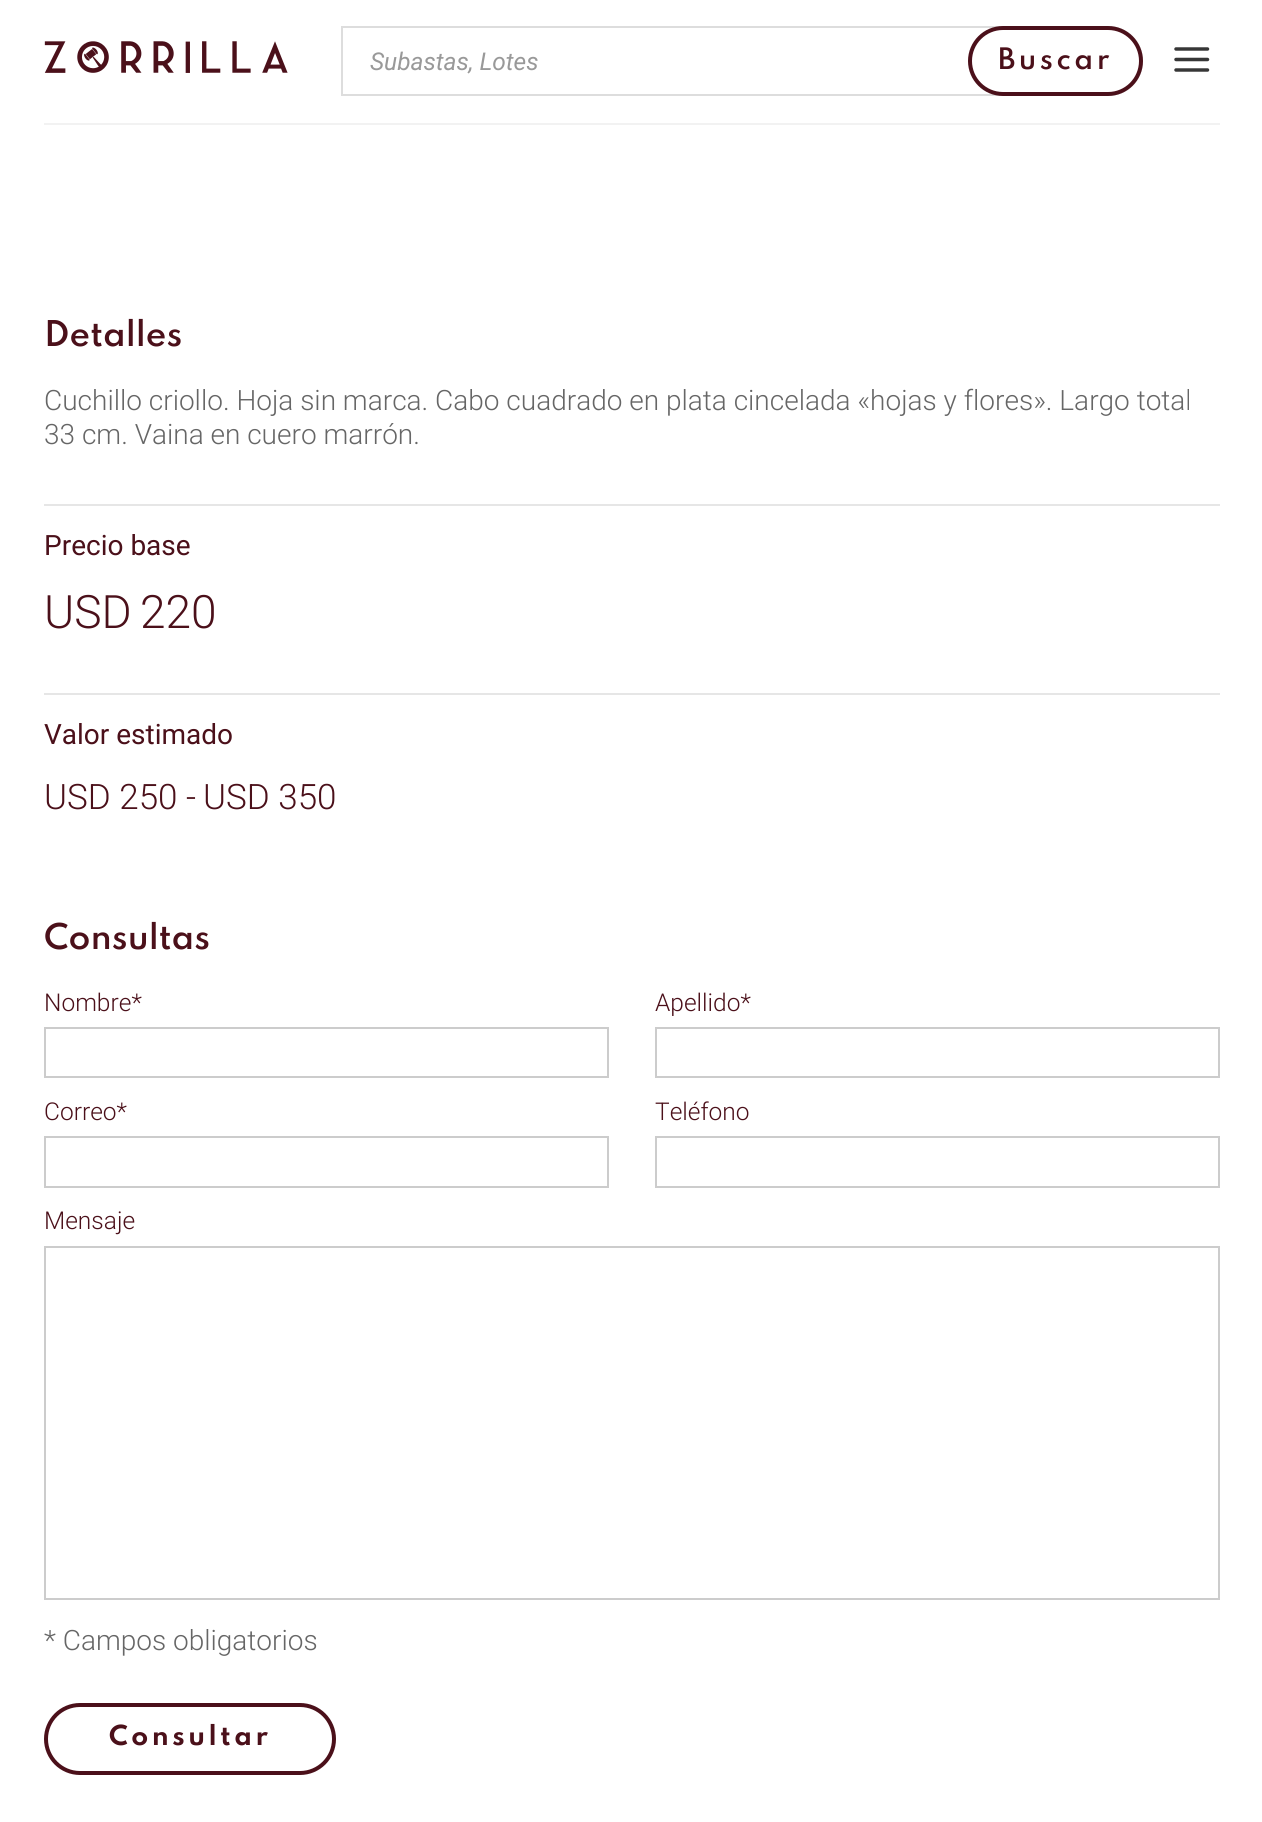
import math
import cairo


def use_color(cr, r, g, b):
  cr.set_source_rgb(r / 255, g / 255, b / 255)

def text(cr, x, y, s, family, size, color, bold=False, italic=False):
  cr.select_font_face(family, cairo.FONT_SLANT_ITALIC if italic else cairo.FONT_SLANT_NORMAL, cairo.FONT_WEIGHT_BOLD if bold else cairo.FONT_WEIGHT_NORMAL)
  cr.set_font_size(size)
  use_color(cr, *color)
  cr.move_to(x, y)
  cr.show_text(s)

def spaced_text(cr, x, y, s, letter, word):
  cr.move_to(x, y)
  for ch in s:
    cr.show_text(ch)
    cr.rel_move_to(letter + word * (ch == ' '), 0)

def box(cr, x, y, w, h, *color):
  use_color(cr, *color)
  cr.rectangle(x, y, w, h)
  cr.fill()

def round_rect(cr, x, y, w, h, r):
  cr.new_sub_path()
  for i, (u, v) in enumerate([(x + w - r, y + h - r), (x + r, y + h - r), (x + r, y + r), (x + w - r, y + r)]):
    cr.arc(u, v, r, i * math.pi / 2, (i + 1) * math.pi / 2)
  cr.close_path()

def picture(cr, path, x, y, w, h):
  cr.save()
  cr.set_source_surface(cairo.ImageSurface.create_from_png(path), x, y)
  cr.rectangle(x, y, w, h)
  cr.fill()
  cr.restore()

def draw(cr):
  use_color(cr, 255, 255, 255)
  cr.paint()
  box(cr, 44, 123, 1176, 2, 242, 242, 242)
  picture(cr, "img_01.png", 44, 41, 244, 32)
  cr.new_path()
  cr.move_to(342, 27)
  cr.line_to(1108, 27)
  cr.curve_to(1127, 27, 1142, 42, 1142, 61)
  cr.curve_to(1142, 80, 1127, 95, 1108, 95)
  cr.line_to(342, 95)
  cr.close_path()
  use_color(cr, 221, 221, 221)
  cr.stroke()
  round_rect(cr, 970, 28, 171, 66, 33)
  use_color(cr, 75, 16, 26)
  cr.set_line_width(4)
  cr.stroke()
  picture(cr, "img_02.png", 1174, 47, 36, 25)
  box(cr, 44, 504, 1176, 2, 230, 230, 230)
  box(cr, 44, 693, 1176, 2, 230, 230, 230)
  cr.rectangle(45, 1028, 563, 49)
  use_color(cr, 204, 204, 204)
  cr.set_line_width(2)
  cr.stroke()
  cr.rectangle(656, 1028, 563, 49)
  cr.stroke()
  cr.rectangle(45, 1137, 563, 50)
  cr.stroke()
  cr.rectangle(656, 1137, 563, 50)
  cr.stroke()
  cr.rectangle(45, 1247, 1174, 352)
  cr.stroke()
  round_rect(cr, 46, 1705, 288, 68, 34)
  use_color(cr, 75, 16, 26)
  cr.set_line_width(4)
  cr.stroke()
  text(cr, 370, 70, "Subastas, Lotes", "Roboto", 24.5, (153, 153, 153), italic=True)
  cr.select_font_face("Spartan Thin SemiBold")
  cr.set_font_size(26.25)
  use_color(cr, 75, 16, 26)
  spaced_text(cr, 998, 69, "Buscar", 3.5, 0)
  text(cr, 44, 346, "Detalles", "Spartan Thin SemiBold", 31.5, (75, 16, 26))
  text(cr, 44, 410, "Cuchillo criollo. Hoja sin marca. Cabo cuadrado en plata cincelada «hojas y flores». Largo total", "Roboto Light", 28, (102, 102, 102))
  text(cr, 44, 444, "33 cm. Vaina en cuero marrón.", "Roboto Light", 28, (102, 102, 102))
  text(cr, 44, 555, "Precio base", "Roboto", 28, (75, 16, 26))
  text(cr, 44, 628, "USD", "Roboto Light", 46, (75, 16, 26))
  text(cr, 140, 628, "220", "Roboto Light", 46, (75, 16, 26))
  text(cr, 44, 744, "Valor estimado", "Roboto", 28, (75, 16, 26))
  text(cr, 44, 809, "USD 250 -", "Roboto Light", 35, (75, 16, 26))
  text(cr, 203, 809, "USD 350", "Roboto Light", 35, (75, 16, 26))
  text(cr, 44, 949, "Consultas", "Spartan Thin SemiBold", 31.5, (75, 16, 26))
  text(cr, 44, 1011, "Nombre*", "Roboto Light", 24.5, (75, 16, 26))
  text(cr, 655, 1011, "Apellido*", "Roboto Light", 24.5, (75, 16, 26))
  text(cr, 44, 1120, "Correo*", "Roboto Light", 24.5, (75, 16, 26))
  text(cr, 655, 1120, "Teléfono", "Roboto Light", 24.5, (75, 16, 26))
  text(cr, 44, 1229, "Mensaje", "Roboto Light", 24.5, (75, 16, 26))
  text(cr, 44, 1650, "* Campos obligatorios", "Roboto Light", 28, (102, 102, 102))
  cr.select_font_face("Spartan Thin", cairo.FONT_SLANT_NORMAL, cairo.FONT_WEIGHT_BOLD)
  cr.set_font_size(24.5)
  use_color(cr, 75, 16, 26)
  spaced_text(cr, 109, 1745, "Consultar", 3.5, 0)


surface = cairo.ImageSurface(cairo.FORMAT_RGB24, 1262, 1822)
cr = cairo.Context(surface)
options = cairo.FontOptions()
options.set_hint_metrics(cairo.HINT_METRICS_OFF)
options.set_hint_style(cairo.HINT_STYLE_NONE)
cr.set_font_options(options)
cr.set_miter_limit(4)
draw(cr)
surface.write_to_png("out.png")
